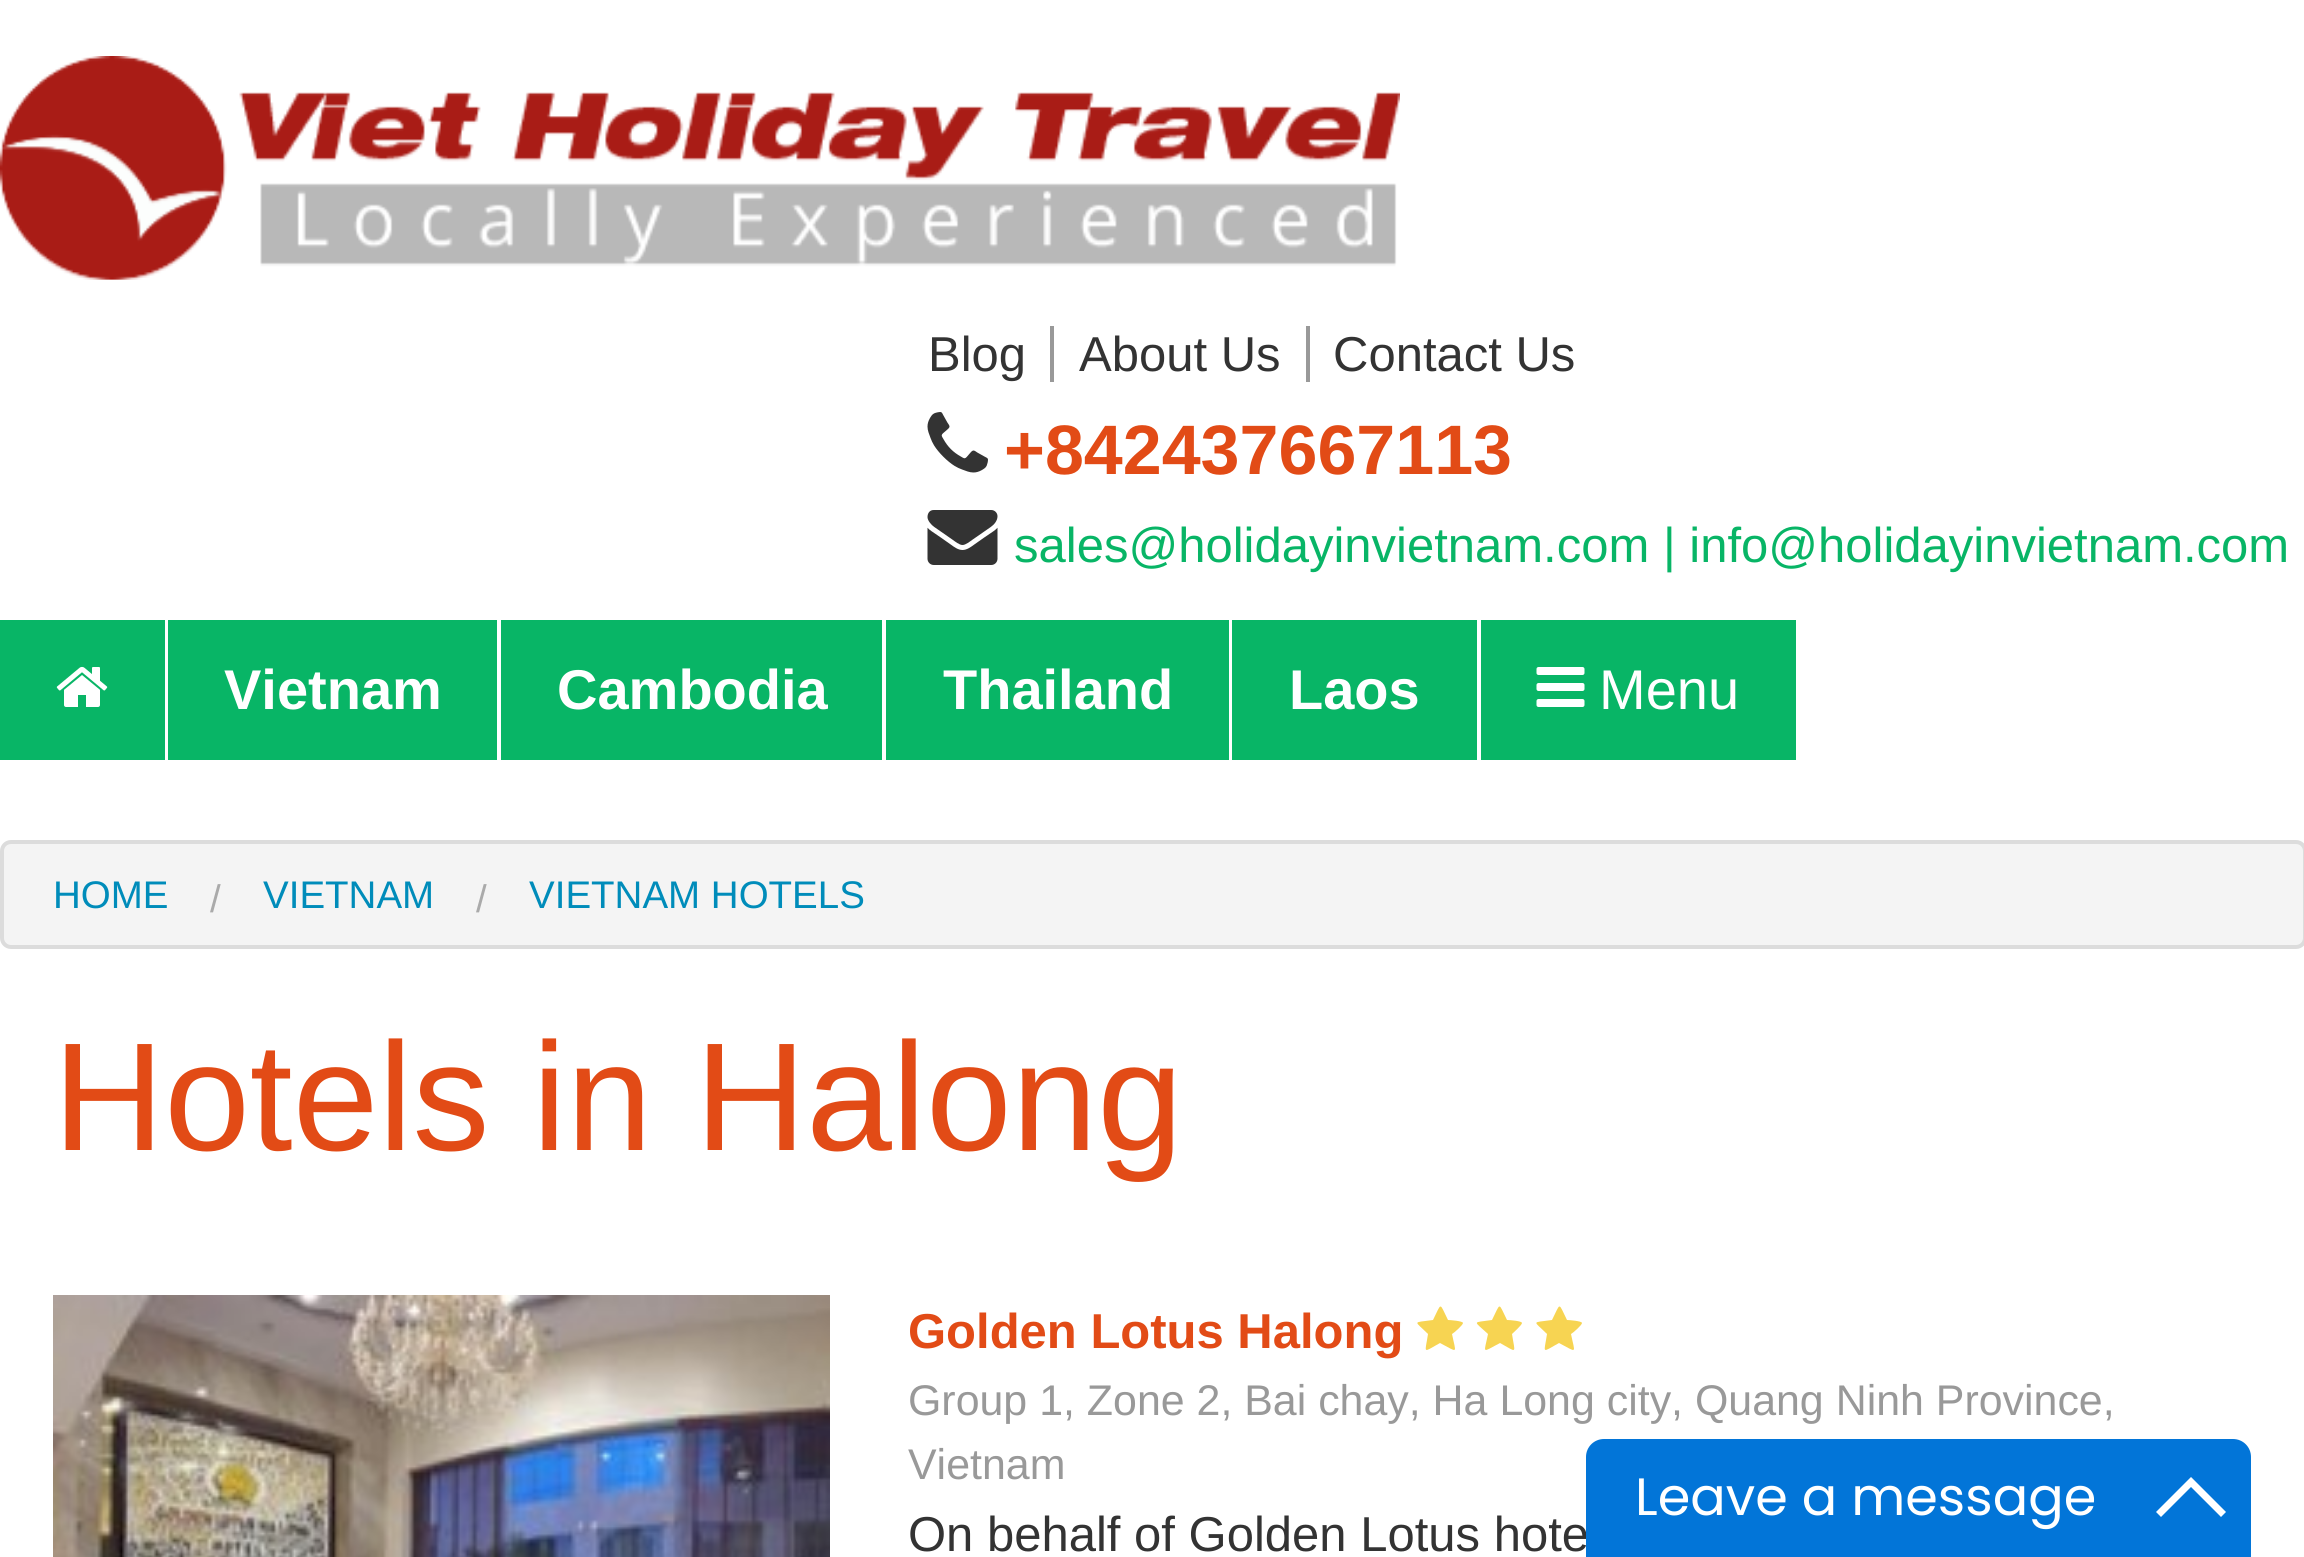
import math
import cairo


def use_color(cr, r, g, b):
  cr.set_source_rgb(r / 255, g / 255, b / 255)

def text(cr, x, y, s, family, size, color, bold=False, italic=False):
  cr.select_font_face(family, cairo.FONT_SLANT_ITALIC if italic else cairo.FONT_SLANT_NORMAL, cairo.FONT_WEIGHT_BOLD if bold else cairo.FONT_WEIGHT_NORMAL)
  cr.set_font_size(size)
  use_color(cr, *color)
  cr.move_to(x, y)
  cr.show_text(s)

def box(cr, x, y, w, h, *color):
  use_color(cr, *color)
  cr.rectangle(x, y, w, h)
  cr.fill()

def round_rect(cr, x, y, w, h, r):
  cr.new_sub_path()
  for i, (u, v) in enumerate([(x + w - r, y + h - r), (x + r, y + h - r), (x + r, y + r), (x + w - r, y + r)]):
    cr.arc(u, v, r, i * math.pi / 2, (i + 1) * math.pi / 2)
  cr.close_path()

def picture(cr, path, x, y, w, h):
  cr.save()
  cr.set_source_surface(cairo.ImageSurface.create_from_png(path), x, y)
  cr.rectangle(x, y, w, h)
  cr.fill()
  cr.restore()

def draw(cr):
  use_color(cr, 255, 255, 255)
  cr.paint()
  picture(cr, "img_01.png", 0, 56, 1400, 224)
  box(cr, 1050, 326, 4, 56, 153, 153, 153)
  box(cr, 1306, 326, 4, 56, 153, 153, 153)
  picture(cr, "img_02.png", 927, 412, 61, 61)
  picture(cr, "img_03.png", 927, 510, 71, 55)
  box(cr, 0, 620, 165, 140, 8, 181, 102)
  picture(cr, "img_04.png", 56, 666, 52, 41)
  box(cr, 168, 620, 329, 140, 8, 181, 102)
  box(cr, 501, 620, 381, 140, 8, 181, 102)
  box(cr, 886, 620, 343, 140, 8, 181, 102)
  box(cr, 1232, 620, 245, 140, 8, 181, 102)
  box(cr, 1481, 620, 315, 140, 8, 181, 102)
  picture(cr, "img_05.png", 1536, 667, 49, 40)
  use_color(cr, 244, 244, 244)
  round_rect(cr, 2, 842, 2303, 105, 9)
  cr.fill_preserve()
  use_color(cr, 220, 220, 220)
  cr.set_line_width(4)
  cr.stroke()
  picture(cr, "img_06.png", 53, 1295, 777, 262)
  use_color(cr, 247, 212, 82)
  cr.new_path()
  cr.move_to(1463, 1323)
  cr.curve_to(1463, 1321, 1450, 1320, 1448, 1320)
  cr.curve_to(1439, 1302, 1442, 1302, 1433, 1320)
  cr.curve_to(1412, 1323, 1414, 1320, 1428, 1334)
  cr.curve_to(1425, 1354, 1422, 1353, 1440, 1343)
  cr.curve_to(1459, 1353, 1456, 1354, 1452, 1334)
  cr.curve_to(1454, 1333, 1463, 1325, 1463, 1323)
  cr.close_path()
  cr.fill()
  cr.new_path()
  cr.move_to(1522, 1323)
  cr.curve_to(1522, 1321, 1510, 1320, 1507, 1320)
  cr.curve_to(1498, 1302, 1501, 1302, 1492, 1320)
  cr.curve_to(1472, 1323, 1473, 1320, 1488, 1334)
  cr.curve_to(1484, 1354, 1481, 1353, 1500, 1343)
  cr.curve_to(1518, 1353, 1515, 1354, 1512, 1334)
  cr.curve_to(1513, 1333, 1522, 1325, 1522, 1323)
  cr.close_path()
  cr.fill()
  cr.new_path()
  cr.move_to(1582, 1323)
  cr.curve_to(1582, 1321, 1569, 1320, 1567, 1320)
  cr.curve_to(1558, 1302, 1561, 1302, 1552, 1320)
  cr.curve_to(1531, 1323, 1533, 1320, 1547, 1334)
  cr.curve_to(1544, 1354, 1541, 1353, 1559, 1343)
  cr.curve_to(1578, 1353, 1575, 1354, 1571, 1334)
  cr.curve_to(1573, 1333, 1582, 1325, 1582, 1323)
  cr.close_path()
  cr.fill()
  text(cr, 928, 371, "Blog", "Liberation Sans", 49, (51, 51, 51))
  text(cr, 1079, 371, "About Us", "Liberation Sans", 49, (51, 51, 51))
  text(cr, 1333, 371, "Contact Us", "Liberation Sans", 49, (51, 51, 51))
  text(cr, 1004, 474, "+842437667113", "Liberation Sans", 70, (226, 75, 22), bold=True)
  text(cr, 1014, 562, "sales@holidayinvietnam.com | info@holidayinvietnam.com", "Liberation Sans", 49, (8, 181, 102))
  text(cr, 224, 709, "Vietnam", "Liberation Sans", 56, (255, 255, 255), bold=True)
  text(cr, 557, 709, "Cambodia", "Liberation Sans", 56, (255, 255, 255), bold=True)
  text(cr, 943, 709, "Thailand", "Liberation Sans", 56, (255, 255, 255), bold=True)
  text(cr, 1289, 709, "Laos", "Liberation Sans", 56, (255, 255, 255), bold=True)
  text(cr, 1599, 709, "Menu", "Liberation Sans", 56, (255, 255, 255))
  text(cr, 53, 908, "HOME", "Liberation Sans", 38.5, (0, 140, 186))
  text(cr, 210, 912, "/", "Liberation Sans", 38.5, (170, 170, 170))
  text(cr, 263, 908, "VIETNAM", "Liberation Sans", 38.5, (0, 140, 186))
  text(cr, 476, 912, "/", "Liberation Sans", 38.5, (170, 170, 170))
  text(cr, 529, 908, "VIETNAM HOTELS", "Liberation Sans", 38.5, (0, 140, 186))
  text(cr, 53, 1150, "Hotels in Halong", "Liberation Sans", 154, (226, 75, 22))
  text(cr, 908, 1348, "Golden Lotus Halong", "Liberation Sans", 49, (226, 75, 22), bold=True)
  text(cr, 908, 1415, "Group 1, Zone 2, Bai chay, Ha Long city, Quang Ninh Province,", "Liberation Sans", 42.9, (153, 153, 153))
  text(cr, 908, 1479, "Vietnam", "Liberation Sans", 42.9, (153, 153, 153))
  text(cr, 908, 1551, "On behalf of Golden Lotus hote", "Liberation Sans", 49, (51, 51, 51))
  use_color(cr, 2, 117, 216)
  cr.new_path()
  cr.move_to(1604, 1439)
  cr.line_to(2233, 1439)
  cr.curve_to(2243, 1439, 2251, 1447, 2251, 1457)
  cr.line_to(2251, 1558)
  cr.line_to(1586, 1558)
  cr.line_to(1586, 1457)
  cr.curve_to(1586, 1447, 1594, 1439, 1604, 1439)
  cr.close_path()
  cr.fill()
  text(cr, 1635, 1515, "Leave a message", "Poppins", 52.5, (255, 255, 255))
  cr.new_path()
  cr.move_to(2191, 1477)
  cr.line_to(2226, 1512)
  cr.line_to(2221, 1517)
  cr.line_to(2191, 1487)
  cr.line_to(2161, 1517)
  cr.line_to(2156, 1512)
  cr.close_path()
  cr.fill()


surface = cairo.ImageSurface(cairo.FORMAT_RGB24, 2304, 1557)
cr = cairo.Context(surface)
options = cairo.FontOptions()
options.set_hint_metrics(cairo.HINT_METRICS_OFF)
options.set_hint_style(cairo.HINT_STYLE_NONE)
cr.set_font_options(options)
cr.set_miter_limit(4)
draw(cr)
surface.write_to_png("out.png")
